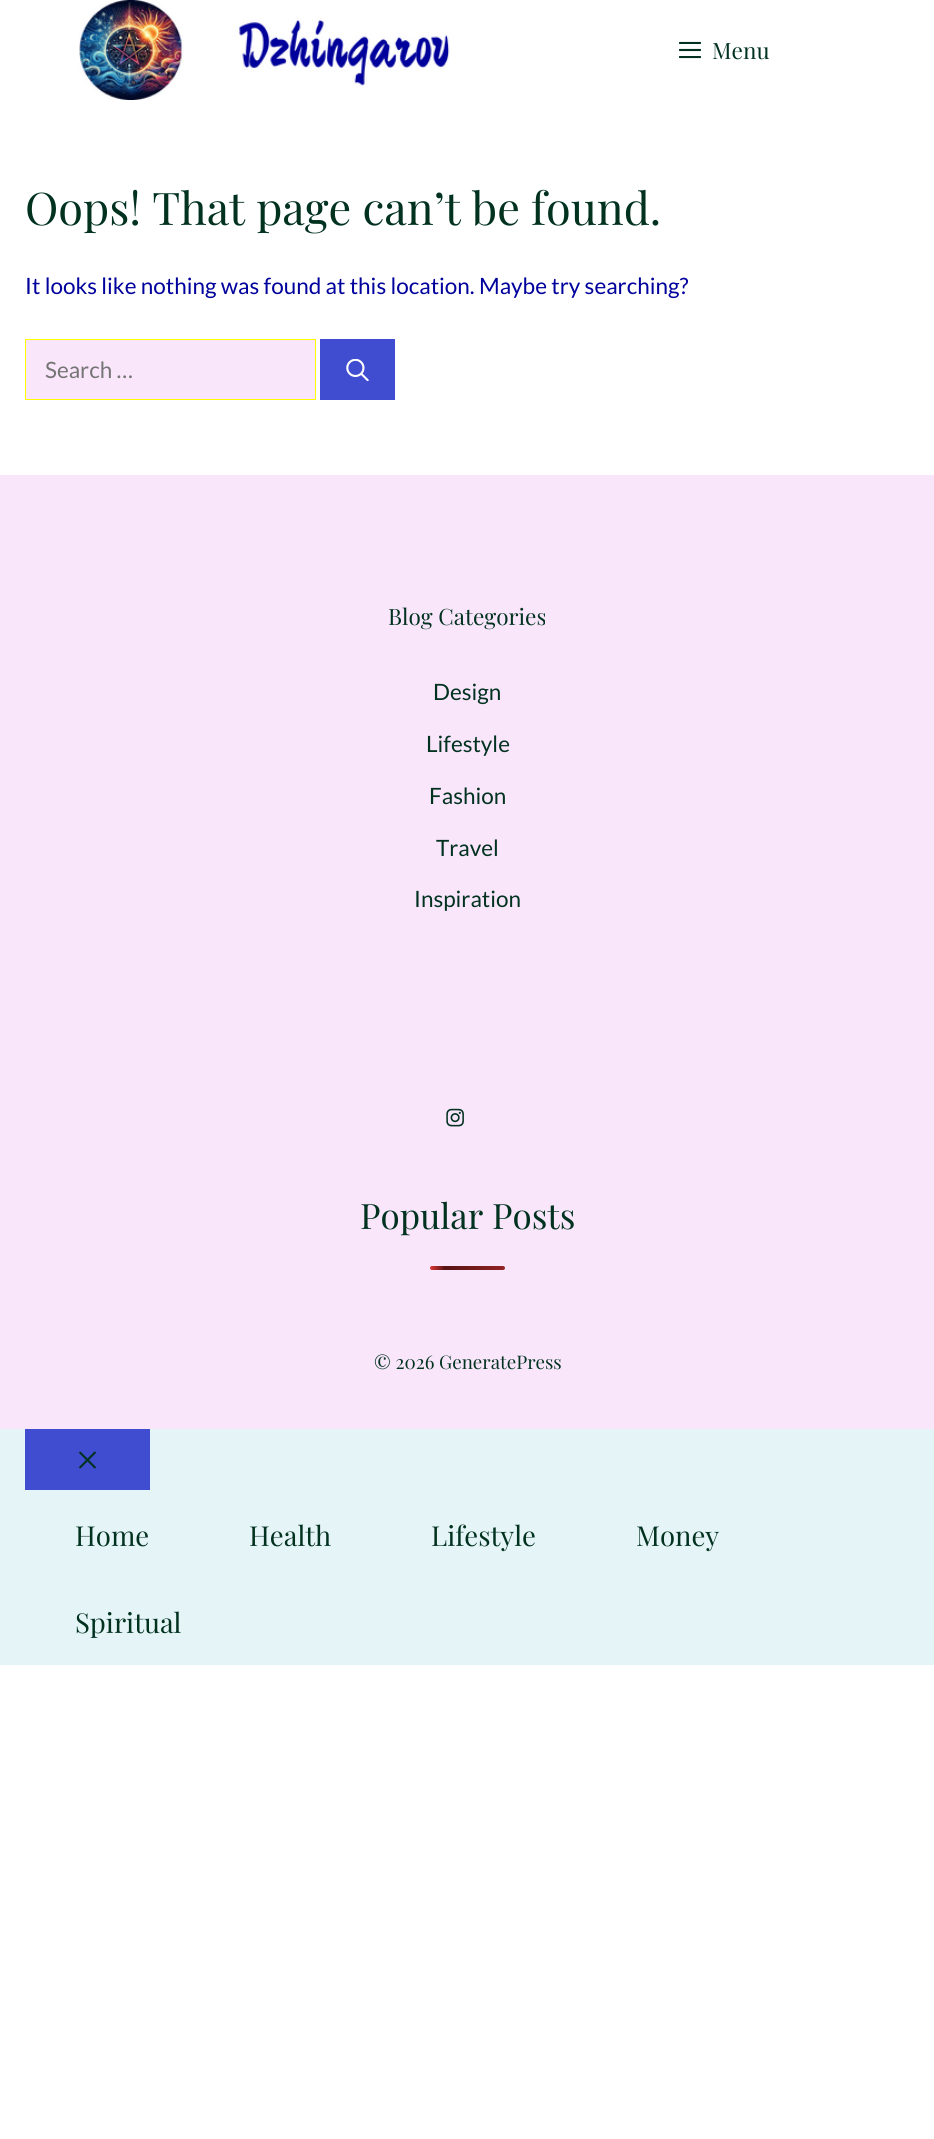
import math
import cairo


def use_color(cr, r, g, b):
  cr.set_source_rgb(r / 255, g / 255, b / 255)

def text(cr, x, y, s, family, size, color, bold=False, italic=False):
  cr.select_font_face(family, cairo.FONT_SLANT_ITALIC if italic else cairo.FONT_SLANT_NORMAL, cairo.FONT_WEIGHT_BOLD if bold else cairo.FONT_WEIGHT_NORMAL)
  cr.set_font_size(size)
  use_color(cr, *color)
  cr.move_to(x, y)
  cr.show_text(s)

def box(cr, x, y, w, h, *color):
  use_color(cr, *color)
  cr.rectangle(x, y, w, h)
  cr.fill()

def round_rect(cr, x, y, w, h, r):
  cr.new_sub_path()
  for i, (u, v) in enumerate([(x + w - r, y + h - r), (x + r, y + h - r), (x + r, y + r), (x + w - r, y + r)]):
    cr.arc(u, v, r, i * math.pi / 2, (i + 1) * math.pi / 2)
  cr.close_path()

def picture(cr, path, x, y, w, h):
  cr.save()
  cr.set_source_surface(cairo.ImageSurface.create_from_png(path), x, y)
  cr.rectangle(x, y, w, h)
  cr.fill()
  cr.restore()

def draw(cr):
  use_color(cr, 255, 255, 255)
  cr.paint()
  picture(cr, "img_01.png", 79, 0, 371, 100)
  picture(cr, "img_02.png", 679, 41, 22, 18)
  use_color(cr, 250, 230, 250)
  cr.rectangle(25.5, 339.5, 290, 60)
  cr.fill_preserve()
  use_color(cr, 255, 255, 0)
  cr.set_line_width(1)
  cr.stroke()
  box(cr, 320, 339, 75, 61, 65, 77, 208)
  picture(cr, "img_03.png", 346, 359, 23, 22)
  box(cr, 0, 475, 934, 954, 250, 230, 250)
  picture(cr, "img_04.png", 446, 1108, 18, 19)
  gradient = cairo.LinearGradient(430, 1268, 580, 1268)
  gradient.add_color_stop_rgba(0, 0.867, 0.216, 0.216, 1)
  gradient.add_color_stop_rgba(0.1, 0.341, 0.075, 0.075, 1)
  gradient.add_color_stop_rgba(1, 0.867, 0.216, 0.216, 1)
  cr.set_source(gradient)
  round_rect(cr, 430, 1266, 75, 4, 2)
  cr.fill()
  box(cr, 0, 1429, 934, 236, 229, 244, 246)
  box(cr, 25, 1429, 125, 61, 65, 77, 208)
  picture(cr, "img_05.png", 79, 1451, 17, 18)
  text(cr, 712, 59, "Menu", "Playfair Display", 22.5, (1, 50, 32))
  text(cr, 25, 225, "Oops! That page can’t be found.", "Playfair Display", 45, (1, 50, 32))
  text(cr, 25, 294, "It looks like nothing was found at this location. Maybe try searching?", "Lato", 22.5, (0, 0, 156))
  text(cr, 45, 378, "Search …", "Lato", 22.5, (117, 117, 117))
  text(cr, 388, 625, "Blog Categories", "Playfair Display", 22.5, (1, 50, 32))
  text(cr, 433, 700, "Design", "Lato", 22.5, (1, 50, 32))
  text(cr, 426, 752, "Lifestyle", "Lato", 22.5, (1, 50, 32))
  text(cr, 429, 804, "Fashion", "Lato", 22.5, (1, 50, 32))
  text(cr, 436, 856, "Travel", "Lato", 22.5, (1, 50, 32))
  text(cr, 414, 907, "Inspiration", "Lato", 22.5, (1, 50, 32))
  text(cr, 360, 1229, "Popular Posts", "Playfair Display", 35, (1, 50, 32))
  text(cr, 374, 1369, "© 2026 GeneratePress", "Playfair Display", 18.75, (1, 50, 32))
  text(cr, 75, 1546, "Home", "Playfair Display", 27.5, (1, 50, 32))
  text(cr, 249, 1546, "Health", "Playfair Display", 27.5, (1, 50, 32))
  text(cr, 431, 1546, "Lifestyle", "Playfair Display", 27.5, (1, 50, 32))
  text(cr, 636, 1546, "Money", "Playfair Display", 27.5, (1, 50, 32))
  text(cr, 75, 1633, "Spiritual", "Playfair Display", 27.5, (1, 50, 32))


surface = cairo.ImageSurface(cairo.FORMAT_RGB24, 934, 2139)
cr = cairo.Context(surface)
options = cairo.FontOptions()
options.set_hint_metrics(cairo.HINT_METRICS_OFF)
options.set_hint_style(cairo.HINT_STYLE_NONE)
cr.set_font_options(options)
cr.set_miter_limit(4)
draw(cr)
surface.write_to_png("out.png")
